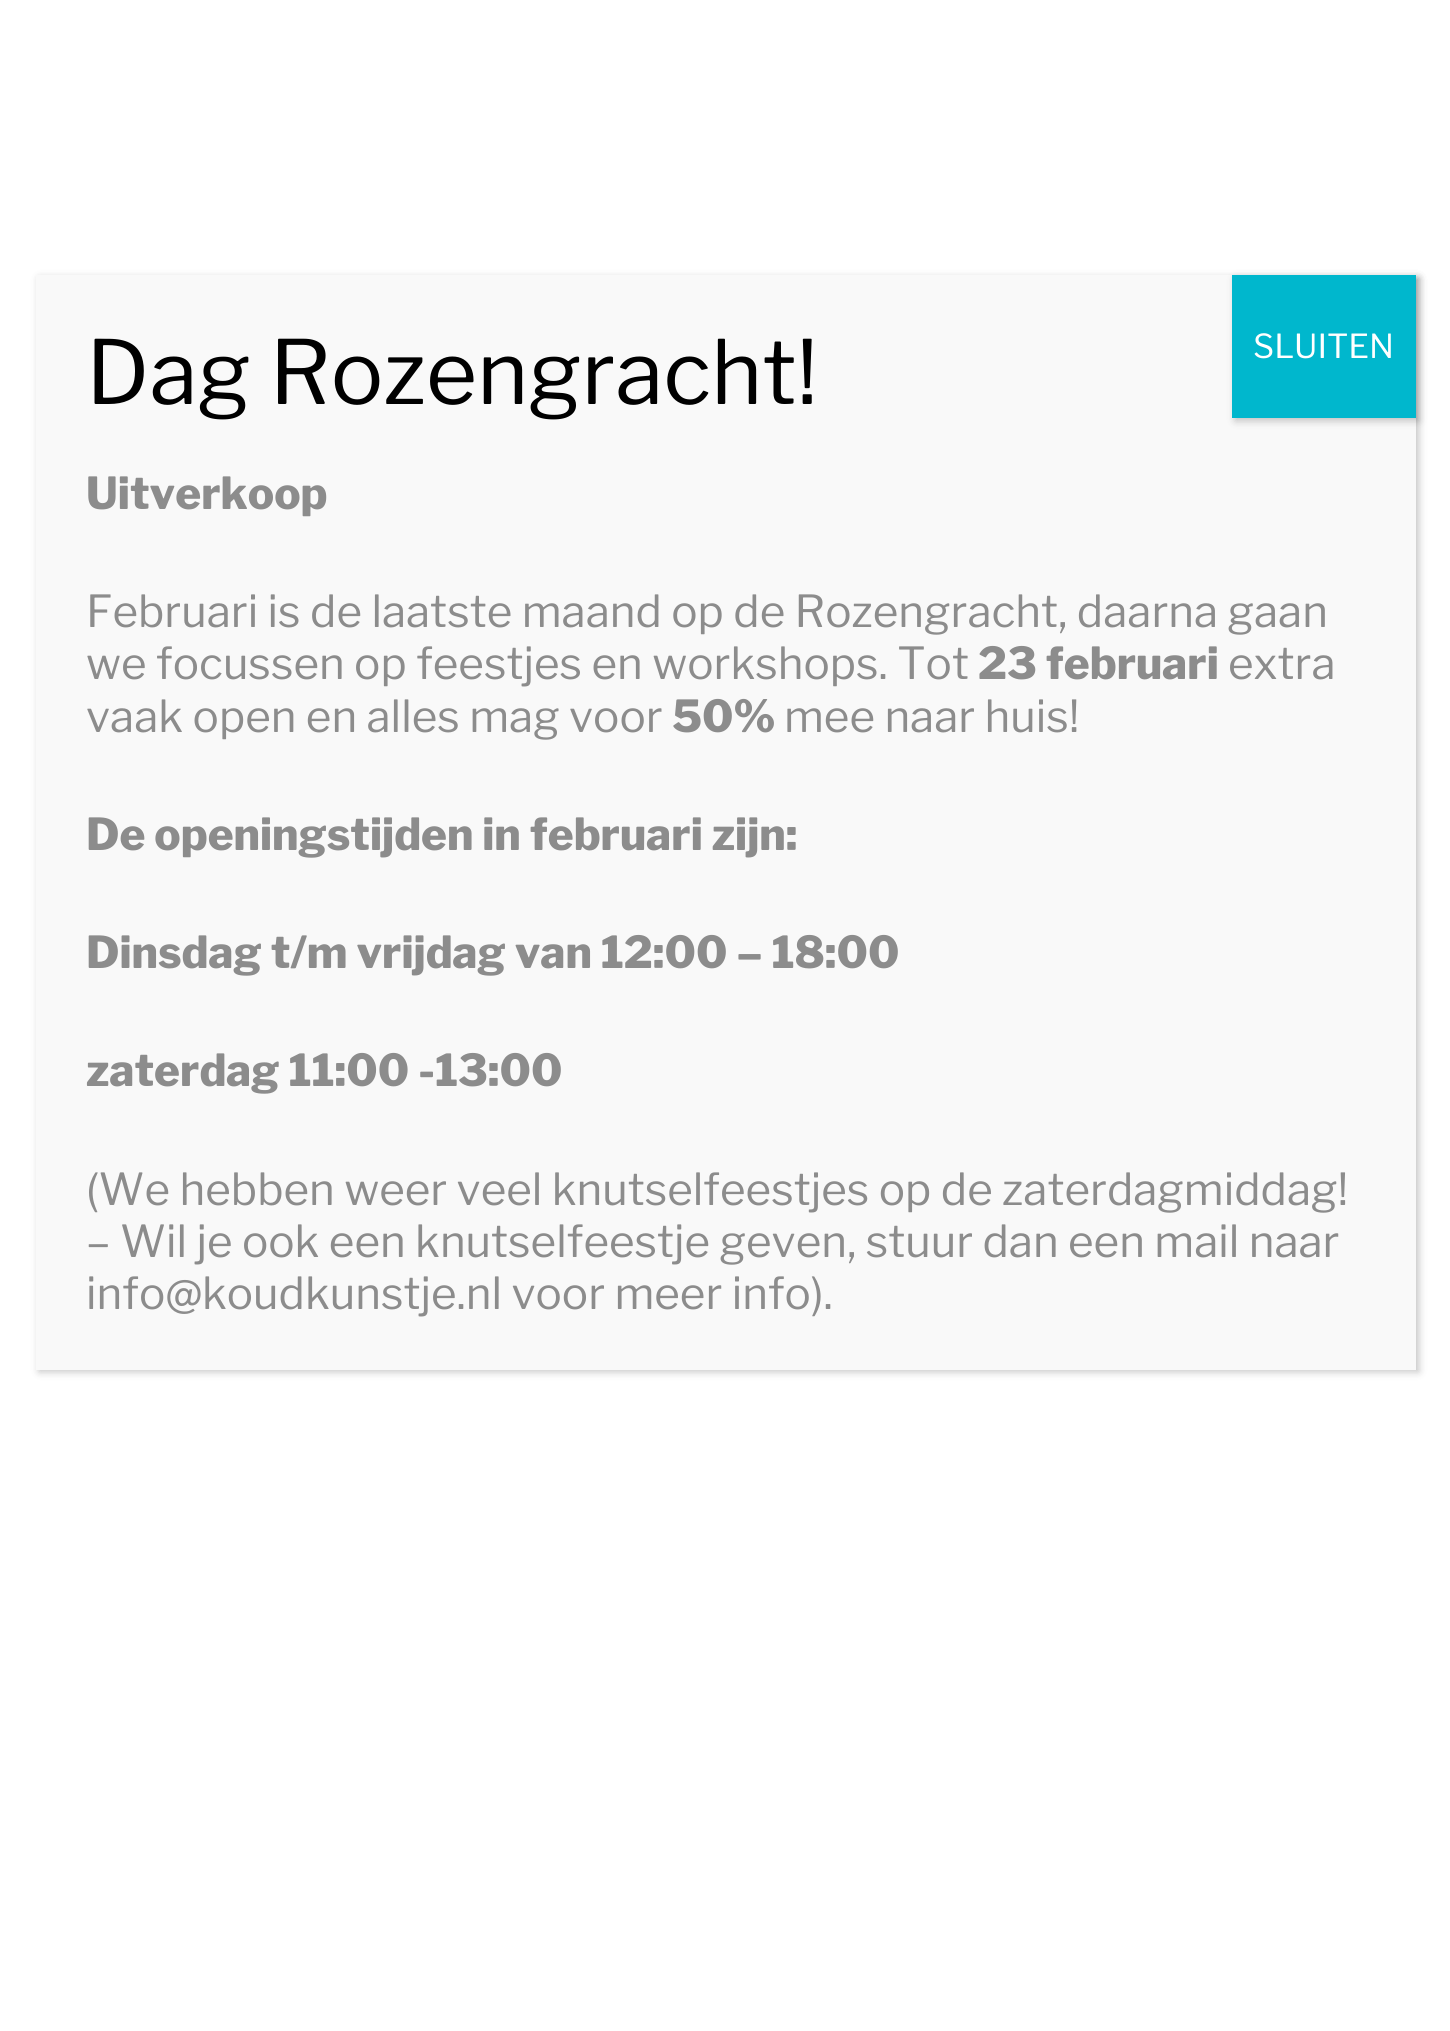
import math
import cairo


def use_color(cr, r, g, b):
  cr.set_source_rgb(r / 255, g / 255, b / 255)

def text(cr, x, y, s, family, size, color, bold=False, italic=False):
  cr.select_font_face(family, cairo.FONT_SLANT_ITALIC if italic else cairo.FONT_SLANT_NORMAL, cairo.FONT_WEIGHT_BOLD if bold else cairo.FONT_WEIGHT_NORMAL)
  cr.set_font_size(size)
  use_color(cr, *color)
  cr.move_to(x, y)
  cr.show_text(s)

def box(cr, x, y, w, h, *color):
  use_color(cr, *color)
  cr.rectangle(x, y, w, h)
  cr.fill()

def round_rect(cr, x, y, w, h, r):
  cr.new_sub_path()
  for i, (u, v) in enumerate([(x + w - r, y + h - r), (x + r, y + h - r), (x + r, y + r), (x + w - r, y + r)]):
    cr.arc(u, v, r, i * math.pi / 2, (i + 1) * math.pi / 2)
  cr.close_path()

def shadow(cr, x, y, w, h, r, blur, alpha):
  cr.push_group_with_content(cairo.CONTENT_ALPHA)
  cr.set_operator(cairo.OPERATOR_SOURCE)
  for i in range(15, -16, -2):
    e = blur * i / 6
    if min(w, h) + 2 * e > 0:
      cr.set_source_rgba(0, 0, 0, alpha * math.erfc((i - 1) / 8.5) / 2)
      round_rect(cr, x - e, y - e, w + 2 * e, h + 2 * e, max(0, min(r + e + blur * .6, min(w, h) / 2 + e)))
      cr.fill()
  cr.mask(cr.pop_group())

def draw(cr):
  use_color(cr, 255, 255, 255)
  cr.paint()
  use_color(cr, 2, 2, 2)
  shadow(cr, 39, 278, 1380, 1094, 0, 4, 0.23)
  box(cr, 36, 275, 1380, 1095, 249, 249, 249)
  use_color(cr, 2, 2, 2)
  shadow(cr, 1235, 278, 184, 143, 0, 4, 0.23)
  box(cr, 1232, 275, 184, 143, 0, 183, 205)
  text(cr, 86, 404, "Dag Rozengracht!", "Libre Franklin Thin", 88, (0, 0, 0))
  text(cr, 1253, 358, "SLUITEN", "Libre Franklin Thin", 33, (255, 255, 255))
  text(cr, 86, 509, "Uitverkoop", "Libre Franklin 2 Thin", 44, (140, 140, 140))
  text(cr, 86, 627, "Februari is de laatste maand op de Rozengracht, daarna gaan", "Libre Franklin Thin", 44, (140, 140, 140))
  text(cr, 86, 679, "we focussen op feestjes en workshops. Tot", "Libre Franklin Thin", 44, (140, 140, 140))
  text(cr, 978, 679, "23 februari", "Libre Franklin 2 Thin", 44, (140, 140, 140))
  text(cr, 1228, 679, "extra", "Libre Franklin Thin", 44, (140, 140, 140))
  text(cr, 86, 732, "vaak open en alles mag voor", "Libre Franklin Thin", 44, (140, 140, 140))
  text(cr, 672, 732, "50%", "Libre Franklin 2 Thin", 44, (140, 140, 140))
  text(cr, 784, 732, "mee naar huis!", "Libre Franklin Thin", 44, (140, 140, 140))
  text(cr, 86, 850, "De openingstijden in februari zijn:", "Libre Franklin 2 Thin", 44, (140, 140, 140))
  text(cr, 86, 968, "Dinsdag t/m vrijdag van 12:00 – 18:00", "Libre Franklin 2 Thin", 44, (140, 140, 140))
  text(cr, 86, 1086, "zaterdag 11:00 -13:00", "Libre Franklin 2 Thin", 44, (140, 140, 140))
  text(cr, 86, 1205, "(We hebben weer veel knutselfeestjes op de zaterdagmiddag!", "Libre Franklin Thin", 44, (140, 140, 140))
  text(cr, 86, 1257, "– Wil je ook een knutselfeestje geven, stuur dan een mail naar", "Libre Franklin Thin", 44, (140, 140, 140))
  text(cr, 86, 1309, "info@koudkunstje.nl voor meer info).", "Libre Franklin Thin", 44, (140, 140, 140))


surface = cairo.ImageSurface(cairo.FORMAT_RGB24, 1450, 2031)
cr = cairo.Context(surface)
options = cairo.FontOptions()
options.set_hint_metrics(cairo.HINT_METRICS_OFF)
options.set_hint_style(cairo.HINT_STYLE_NONE)
cr.set_font_options(options)
cr.set_miter_limit(4)
draw(cr)
surface.write_to_png("out.png")
